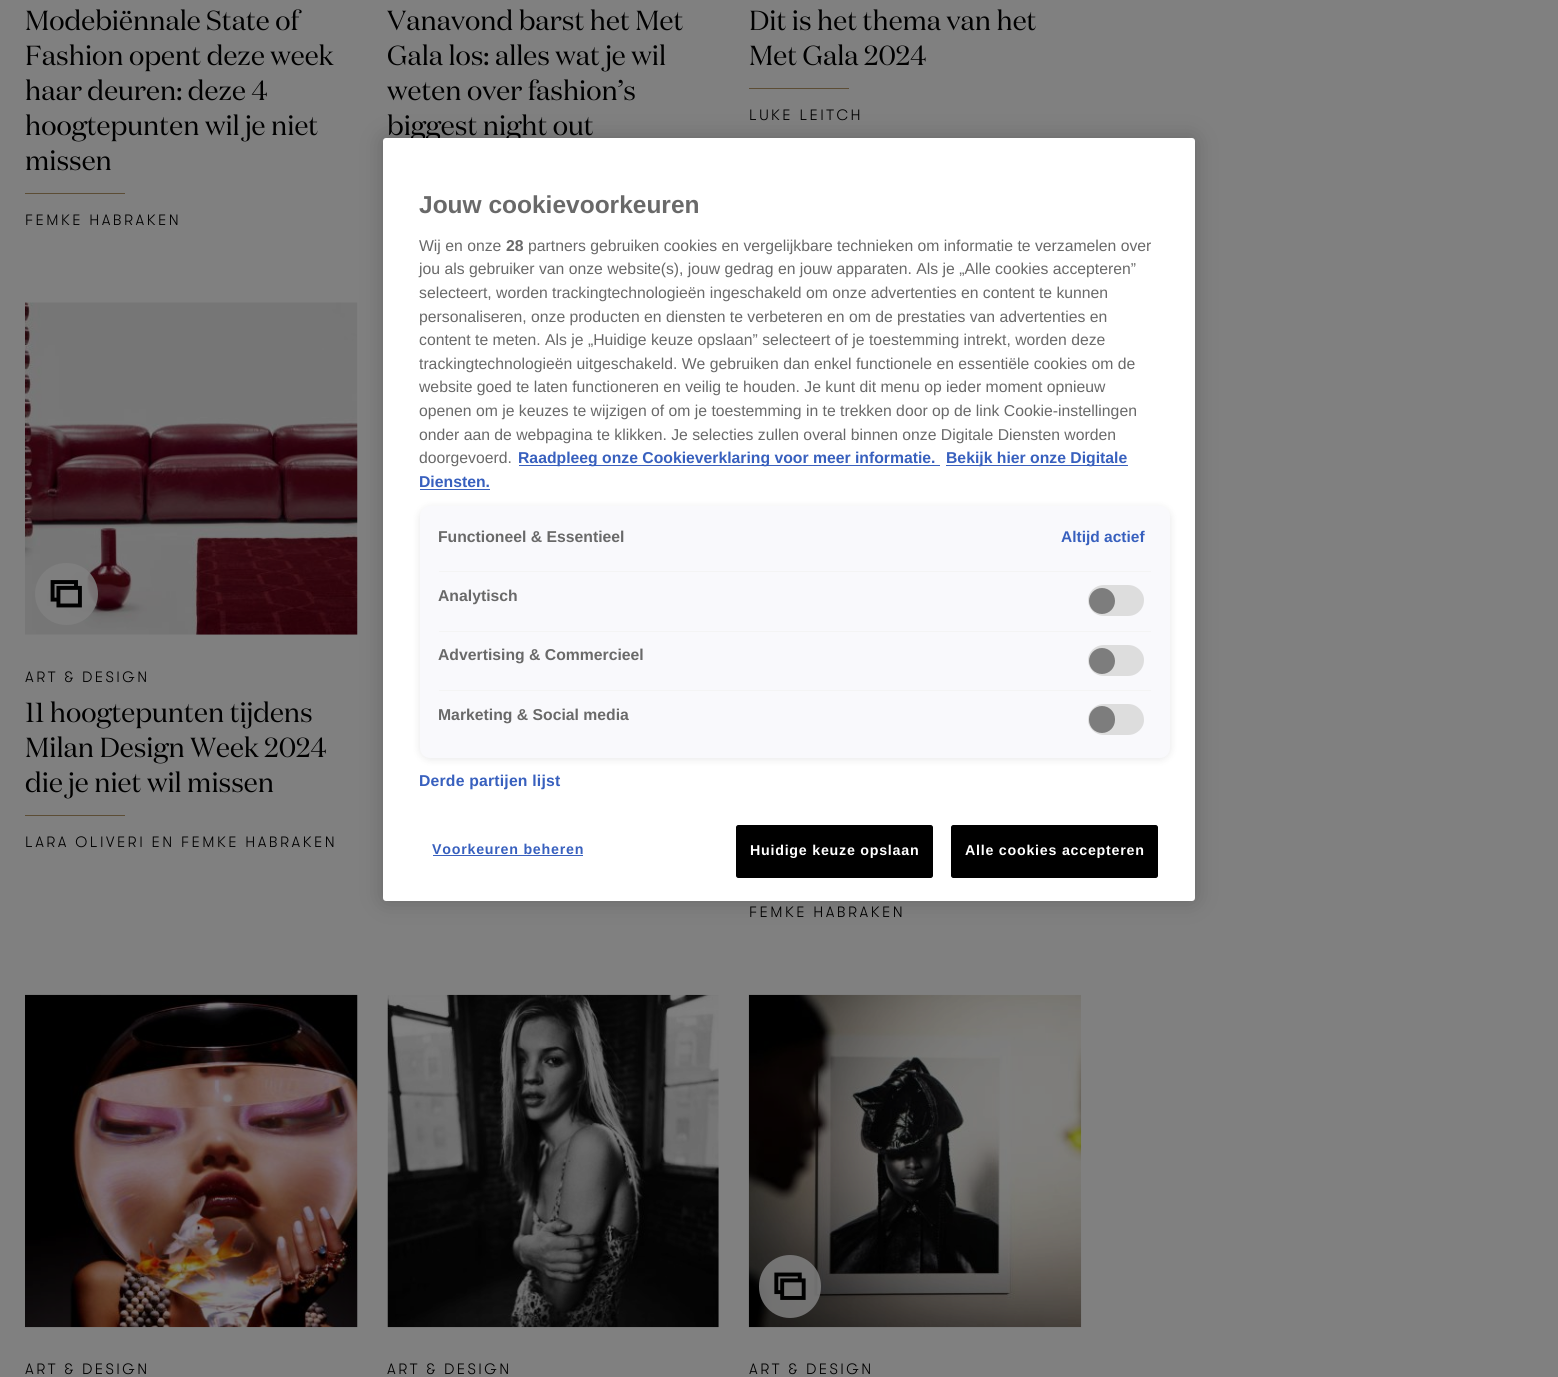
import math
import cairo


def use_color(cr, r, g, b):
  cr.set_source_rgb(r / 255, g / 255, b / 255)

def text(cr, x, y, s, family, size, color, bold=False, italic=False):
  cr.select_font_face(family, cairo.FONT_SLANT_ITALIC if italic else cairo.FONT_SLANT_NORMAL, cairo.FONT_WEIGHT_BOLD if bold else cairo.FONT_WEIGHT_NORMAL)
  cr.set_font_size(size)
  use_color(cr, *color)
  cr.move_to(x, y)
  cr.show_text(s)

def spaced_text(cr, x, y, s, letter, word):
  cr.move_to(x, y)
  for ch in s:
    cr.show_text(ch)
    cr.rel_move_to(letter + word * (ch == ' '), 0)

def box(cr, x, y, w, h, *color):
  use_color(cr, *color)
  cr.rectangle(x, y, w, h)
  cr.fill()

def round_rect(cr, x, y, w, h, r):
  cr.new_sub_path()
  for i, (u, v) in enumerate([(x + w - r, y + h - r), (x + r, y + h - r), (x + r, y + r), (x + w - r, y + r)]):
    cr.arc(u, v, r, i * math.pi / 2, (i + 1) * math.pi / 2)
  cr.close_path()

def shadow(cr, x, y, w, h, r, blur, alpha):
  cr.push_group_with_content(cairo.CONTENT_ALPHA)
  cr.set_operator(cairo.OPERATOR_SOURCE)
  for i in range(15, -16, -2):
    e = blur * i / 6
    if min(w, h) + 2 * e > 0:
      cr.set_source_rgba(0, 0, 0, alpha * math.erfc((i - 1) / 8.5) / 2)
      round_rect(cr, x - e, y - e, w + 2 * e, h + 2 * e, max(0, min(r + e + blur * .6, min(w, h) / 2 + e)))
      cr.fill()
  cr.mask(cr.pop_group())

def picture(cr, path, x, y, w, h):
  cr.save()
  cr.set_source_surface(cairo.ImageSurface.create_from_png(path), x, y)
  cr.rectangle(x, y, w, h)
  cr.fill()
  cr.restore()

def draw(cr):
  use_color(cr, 128, 128, 128)
  cr.paint()
  box(cr, 25, 193, 100, 1, 92, 77, 53)
  box(cr, 749, 88, 100, 1, 92, 77, 53)
  picture(cr, "img_01.png", 25, 302, 333, 333)
  cr.set_source_rgba(0.502, 0.502, 0.502, 0.85)
  round_rect(cr, 35, 563, 63, 62, 31)
  cr.fill()
  picture(cr, "img_02.png", 50, 580, 32, 28)
  box(cr, 25, 815, 100, 1, 92, 77, 53)
  use_color(cr, 0, 0, 0)
  shadow(cr, 383, 138, 812, 763, 3, 11, 0.2)
  picture(cr, "img_03.png", 25, 994, 333, 334)
  picture(cr, "img_04.png", 387, 994, 332, 334)
  picture(cr, "img_05.png", 748, 994, 334, 334)
  cr.set_source_rgba(0.502, 0.502, 0.502, 0.85)
  round_rect(cr, 759, 1255, 62, 63, 31)
  cr.fill()
  picture(cr, "img_06.png", 774, 1272, 32, 28)
  text(cr, 25, 30, "Modebiënnale State of", "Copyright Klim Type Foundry", 27.5, (0, 0, 0))
  text(cr, 25, 65, "Fashion opent deze week", "Copyright Klim Type Foundry", 27.5, (0, 0, 0))
  text(cr, 25, 100, "haar deuren: deze 4", "Copyright Klim Type Foundry", 27.5, (0, 0, 0))
  text(cr, 25, 135, "hoogtepunten wil je niet", "Copyright Klim Type Foundry", 27.5, (0, 0, 0))
  text(cr, 25, 170, "missen", "Copyright Klim Type Foundry", 27.5, (0, 0, 0))
  cr.select_font_face("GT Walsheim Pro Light")
  cr.set_font_size(15)
  spaced_text(cr, 25, 225, "FEMKE HABRAKEN", 2.5, 0)
  text(cr, 387, 30, "Vanavond barst het Met", "Copyright Klim Type Foundry", 27.5, (0, 0, 0))
  text(cr, 387, 65, "Gala los: alles wat je wil", "Copyright Klim Type Foundry", 27.5, (0, 0, 0))
  text(cr, 387, 100, "weten over fashion’s", "Copyright Klim Type Foundry", 27.5, (0, 0, 0))
  text(cr, 387, 135, "biggest night out", "Copyright Klim Type Foundry", 27.5, (0, 0, 0))
  text(cr, 749, 30, "Dit is het thema van het", "Copyright Klim Type Foundry", 27.5, (0, 0, 0))
  text(cr, 749, 65, "Met Gala 2024", "Copyright Klim Type Foundry", 27.5, (0, 0, 0))
  cr.select_font_face("GT Walsheim Pro Light")
  cr.set_font_size(15)
  spaced_text(cr, 749, 120, "LUKE LEITCH", 2.5, 0)
  spaced_text(cr, 25, 682, "ART & DESIGN", 2.5, 0)
  text(cr, 25, 722, "11 hoogtepunten tijdens", "Copyright Klim Type Foundry", 27.5, (0, 0, 0))
  text(cr, 25, 757, "Milan Design Week 2024", "Copyright Klim Type Foundry", 27.5, (0, 0, 0))
  text(cr, 25, 792, "die je niet wil missen", "Copyright Klim Type Foundry", 27.5, (0, 0, 0))
  cr.select_font_face("GT Walsheim Pro Light")
  cr.set_font_size(15)
  spaced_text(cr, 25, 847, "LARA OLIVERI EN FEMKE HABRAKEN", 2.5, 0)
  spaced_text(cr, 749, 917, "FEMKE HABRAKEN", 2.5, 0)
  use_color(cr, 255, 255, 255)
  round_rect(cr, 383, 138, 812, 763, 3)
  cr.fill()
  text(cr, 419, 213, "Jouw cookievoorkeuren", "Liberation Sans", 24.5, (105, 105, 105), bold=True)
  text(cr, 419, 251, "Wij en onze", "Liberation Sans", 15.75, (105, 105, 105))
  text(cr, 506, 251, "28", "Liberation Sans", 15.75, (105, 105, 105), bold=True)
  text(cr, 528, 251, "partners gebruiken cookies en vergelijkbare technieken om informatie te verzamelen over", "Liberation Sans", 15.75, (105, 105, 105))
  text(cr, 419, 274, "jou als gebruiker van onze website(s), jouw gedrag en jouw apparaten. Als je „Alle cookies accepteren”", "Liberation Sans", 15.75, (105, 105, 105))
  text(cr, 419, 298, "selecteert, worden trackingtechnologieën ingeschakeld om onze advertenties en content te kunnen", "Liberation Sans", 15.75, (105, 105, 105))
  text(cr, 419, 322, "personaliseren, onze producten en diensten te verbeteren en om de prestaties van advertenties en", "Liberation Sans", 15.75, (105, 105, 105))
  text(cr, 419, 345, "content te meten. Als je „Huidige keuze opslaan” selecteert of je toestemming intrekt, worden deze", "Liberation Sans", 15.75, (105, 105, 105))
  text(cr, 419, 369, "trackingtechnologieën uitgeschakeld. We gebruiken dan enkel functionele en essentiële cookies om de", "Liberation Sans", 15.75, (105, 105, 105))
  text(cr, 419, 392, "website goed te laten functioneren en veilig te houden. Je kunt dit menu op ieder moment opnieuw", "Liberation Sans", 15.75, (105, 105, 105))
  text(cr, 419, 416, "openen om je keuzes te wijzigen of om je toestemming in te trekken door op de link Cookie-instellingen", "Liberation Sans", 15.75, (105, 105, 105))
  text(cr, 419, 440, "onder aan de webpagina te klikken. Je selecties zullen overal binnen onze Digitale Diensten worden", "Liberation Sans", 15.75, (105, 105, 105))
  text(cr, 419, 463, "doorgevoerd.", "Liberation Sans", 15.75, (105, 105, 105))
  box(cr, 519, 465, 421, 1, 56, 96, 190)
  text(cr, 518, 463, "Raadpleeg onze Cookieverklaring voor meer informatie.", "Liberation Sans", 15.75, (56, 96, 190), bold=True)
  box(cr, 946, 465, 182, 1, 56, 96, 190)
  text(cr, 946, 463, "Bekijk hier onze Digitale", "Liberation Sans", 15.75, (56, 96, 190), bold=True)
  text(cr, 419, 487, "Diensten.", "Liberation Sans", 15.75, (56, 96, 190), bold=True)
  box(cr, 420, 489, 70, 1, 56, 96, 190)
  use_color(cr, 0, 0, 0)
  shadow(cr, 420, 508, 750, 251, 10, 4, 0.1)
  use_color(cr, 249, 249, 252)
  round_rect(cr, 420, 506, 750, 252, 10)
  cr.fill()
  box(cr, 439, 571, 712, 1, 244, 244, 244)
  text(cr, 438, 542, "Functioneel & Essentieel", "Liberation Sans", 15.75, (105, 105, 105), bold=True)
  text(cr, 1061, 542, "Altijd actief", "Liberation Sans", 15.5, (56, 96, 190), bold=True)
  box(cr, 439, 631, 712, 1, 244, 244, 244)
  text(cr, 438, 601, "Analytisch", "Liberation Sans", 15.75, (105, 105, 105), bold=True)
  use_color(cr, 221, 221, 221)
  cr.new_path()
  cr.move_to(1104, 585)
  cr.line_to(1128, 585)
  cr.curve_to(1137, 585, 1144, 592, 1144, 600)
  cr.curve_to(1144, 609, 1137, 616, 1128, 616)
  cr.line_to(1104, 616)
  cr.curve_to(1095, 616, 1088, 609, 1088, 600)
  cr.curve_to(1088, 592, 1095, 585, 1104, 585)
  cr.close_path()
  cr.fill()
  use_color(cr, 125, 125, 125)
  cr.arc(1102, 601, 13, 0, 2 * math.pi)
  cr.fill()
  box(cr, 439, 690, 712, 1, 244, 244, 244)
  text(cr, 438, 660, "Advertising & Commercieel", "Liberation Sans", 15.75, (105, 105, 105), bold=True)
  use_color(cr, 221, 221, 221)
  cr.new_path()
  cr.move_to(1104, 645)
  cr.line_to(1128, 645)
  cr.curve_to(1137, 645, 1144, 652, 1144, 660)
  cr.curve_to(1144, 669, 1137, 676, 1128, 676)
  cr.line_to(1104, 676)
  cr.curve_to(1095, 676, 1088, 669, 1088, 660)
  cr.curve_to(1088, 652, 1095, 645, 1104, 645)
  cr.close_path()
  cr.fill()
  use_color(cr, 125, 125, 125)
  cr.arc(1102, 661, 13, 0, 2 * math.pi)
  cr.fill()
  text(cr, 438, 720, "Marketing & Social media", "Liberation Sans", 15.75, (105, 105, 105), bold=True)
  use_color(cr, 221, 221, 221)
  cr.new_path()
  cr.move_to(1104, 704)
  cr.line_to(1128, 704)
  cr.curve_to(1137, 704, 1144, 711, 1144, 720)
  cr.curve_to(1144, 728, 1137, 735, 1128, 735)
  cr.line_to(1104, 735)
  cr.curve_to(1095, 735, 1088, 728, 1088, 720)
  cr.curve_to(1088, 711, 1095, 704, 1104, 704)
  cr.close_path()
  cr.fill()
  use_color(cr, 125, 125, 125)
  round_rect(cr, 1089, 706, 26, 27, 13)
  cr.fill()
  use_color(cr, 56, 96, 190)
  spaced_text(cr, 419, 786, "Derde partijen lijst", 0.2, 0)
  cr.set_font_size(14.25)
  spaced_text(cr, 432, 854, "Voorkeuren beheren", 0.75, 0)
  box(cr, 433, 855, 150, 1, 56, 96, 190)
  use_color(cr, 0, 0, 0)
  round_rect(cr, 736.5, 825.5, 196, 52, 2)
  cr.fill_preserve()
  cr.set_line_width(1)
  cr.stroke()
  use_color(cr, 255, 255, 255)
  spaced_text(cr, 750, 855, "Huidige keuze opslaan", 0.75, 0)
  use_color(cr, 0, 0, 0)
  round_rect(cr, 951.5, 825.5, 206, 52, 2)
  cr.fill_preserve()
  cr.stroke()
  use_color(cr, 255, 255, 255)
  spaced_text(cr, 965, 855, "Alle cookies accepteren", 0.75, 0)
  cr.select_font_face("GT Walsheim Pro Light")
  cr.set_font_size(15)
  use_color(cr, 0, 0, 0)
  spaced_text(cr, 25, 1374, "ART & DESIGN", 2.5, 0)
  spaced_text(cr, 387, 1374, "ART & DESIGN", 2.5, 0)
  spaced_text(cr, 749, 1374, "ART & DESIGN", 2.5, 0)


surface = cairo.ImageSurface(cairo.FORMAT_RGB24, 1558, 1377)
cr = cairo.Context(surface)
options = cairo.FontOptions()
options.set_hint_metrics(cairo.HINT_METRICS_OFF)
options.set_hint_style(cairo.HINT_STYLE_NONE)
cr.set_font_options(options)
cr.set_miter_limit(4)
draw(cr)
surface.write_to_png("out.png")
